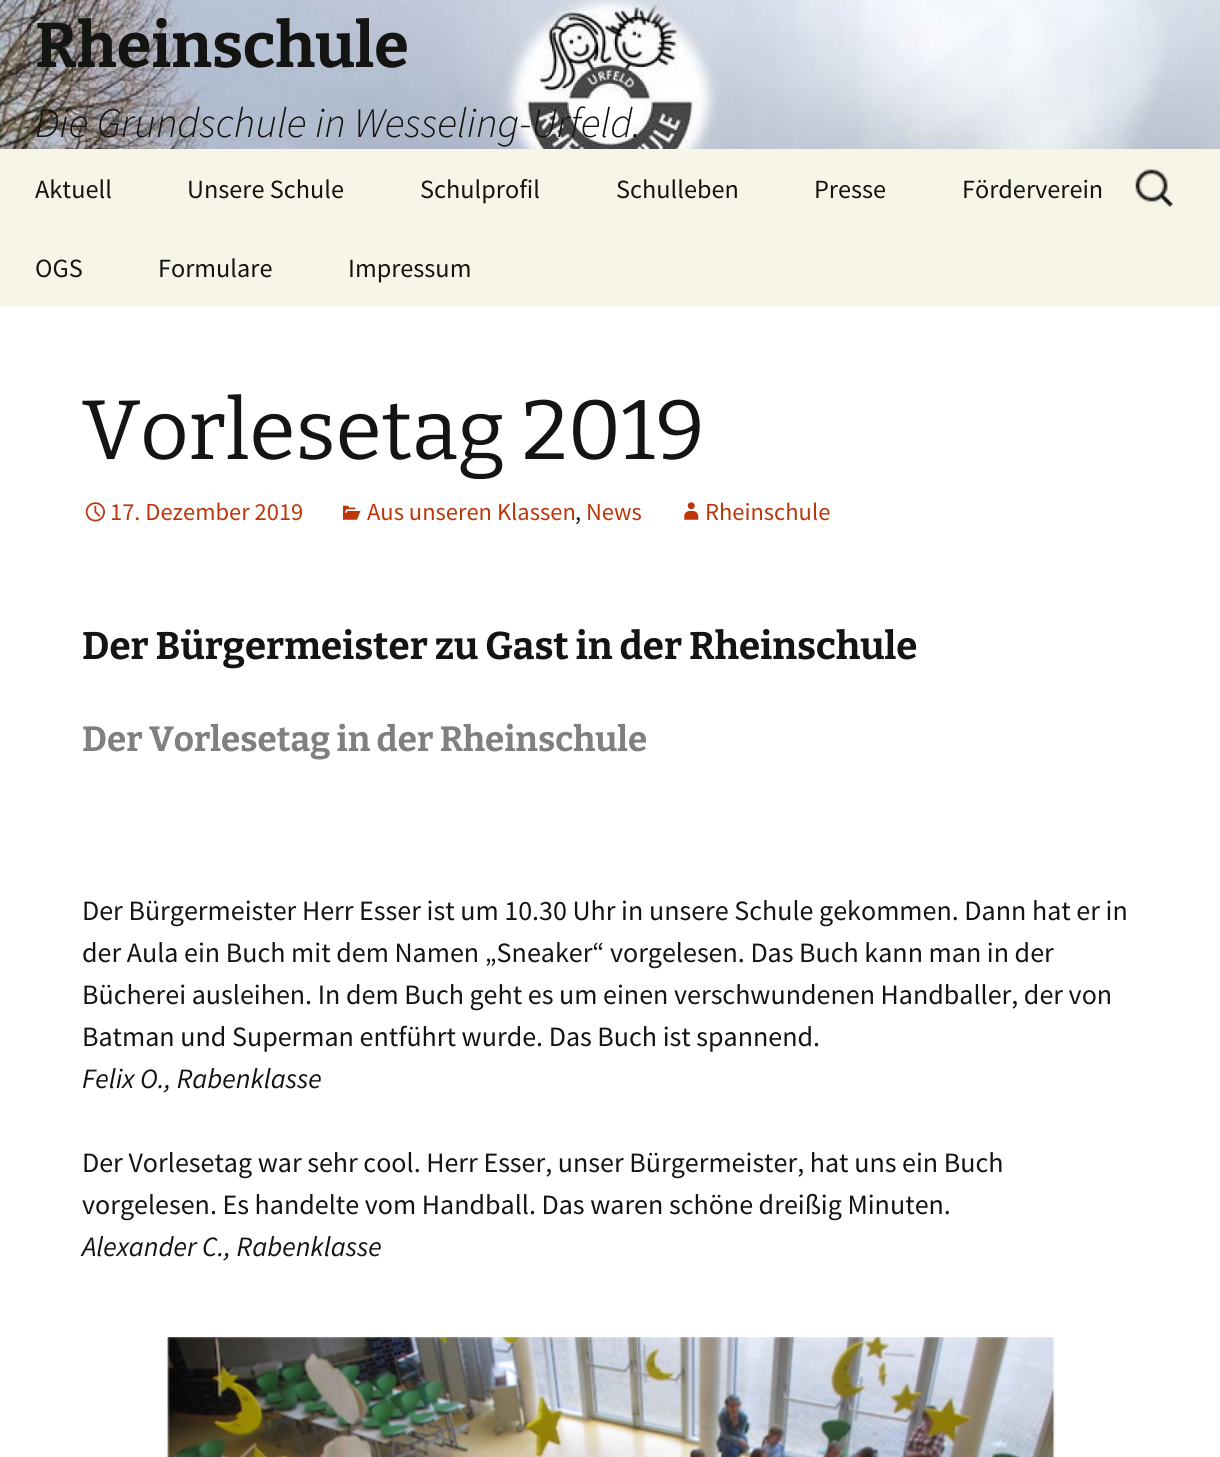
import math
import cairo


def use_color(cr, r, g, b):
  cr.set_source_rgb(r / 255, g / 255, b / 255)

def text(cr, x, y, s, family, size, color, bold=False, italic=False):
  cr.select_font_face(family, cairo.FONT_SLANT_ITALIC if italic else cairo.FONT_SLANT_NORMAL, cairo.FONT_WEIGHT_BOLD if bold else cairo.FONT_WEIGHT_NORMAL)
  cr.set_font_size(size)
  use_color(cr, *color)
  cr.move_to(x, y)
  cr.show_text(s)

def box(cr, x, y, w, h, *color):
  use_color(cr, *color)
  cr.rectangle(x, y, w, h)
  cr.fill()

def picture(cr, path, x, y, w, h):
  cr.save()
  cr.set_source_surface(cairo.ImageSurface.create_from_png(path), x, y)
  cr.rectangle(x, y, w, h)
  cr.fill()
  cr.restore()

def draw(cr):
  use_color(cr, 255, 255, 255)
  cr.paint()
  picture(cr, "img_01.png", 0, 0, 1220, 149)
  box(cr, 0, 149, 1220, 157, 247, 245, 231)
  picture(cr, "img_02.png", 1135, 169, 38, 38)
  picture(cr, "img_03.png", 85, 502, 20, 20)
  picture(cr, "img_04.png", 343, 505, 18, 15)
  picture(cr, "img_05.png", 684, 502, 15, 18)
  picture(cr, "img_06.png", 167, 1337, 888, 120)
  text(cr, 35, 67, "Rheinschule", "Bitter Thin", 63, (20, 20, 18))
  text(cr, 35, 137, "Die Grundschule in Wesseling-Urfeld.", "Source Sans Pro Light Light", 42, (20, 20, 18), italic=True)
  text(cr, 35, 198, "Aktuell", "Source Sans Pro", 26.25, (20, 20, 18))
  text(cr, 187, 198, "Unsere Schule", "Source Sans Pro", 26.25, (20, 20, 18))
  text(cr, 420, 198, "Schulprofil", "Source Sans Pro", 26.25, (20, 20, 18))
  text(cr, 616, 198, "Schulleben", "Source Sans Pro", 26.25, (20, 20, 18))
  text(cr, 814, 198, "Presse", "Source Sans Pro", 26.25, (20, 20, 18))
  text(cr, 962, 198, "Förderverein", "Source Sans Pro", 26.25, (20, 20, 18))
  text(cr, 35, 277, "OGS", "Source Sans Pro", 26.25, (20, 20, 18))
  text(cr, 158, 277, "Formulare", "Source Sans Pro", 26.25, (20, 20, 18))
  text(cr, 348, 277, "Impressum", "Source Sans Pro", 26.25, (20, 20, 18))
  text(cr, 82, 459, "Vorlesetag 2019", "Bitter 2 Thin", 84, (20, 20, 18))
  text(cr, 110, 520, "17. Dezember 2019", "Source Sans Pro", 24.5, (188, 54, 10))
  text(cr, 367, 520, "Aus unseren Klassen", "Source Sans Pro", 24.5, (188, 54, 10))
  text(cr, 575, 520, ",", "Source Sans Pro", 24.5, (20, 20, 18))
  text(cr, 586, 520, "News", "Source Sans Pro", 24.5, (188, 54, 10))
  text(cr, 705, 520, "Rheinschule", "Source Sans Pro", 24.5, (188, 54, 10))
  text(cr, 82, 659, "Der Bürgermeister zu Gast in der Rheinschule", "Bitter Thin", 38.5, (20, 20, 18))
  text(cr, 82, 751, "Der Vorlesetag in der Rheinschule", "Bitter Thin", 35, (128, 128, 128))
  text(cr, 82, 920, "Der Bürgermeister Herr Esser ist um 10.30 Uhr in unsere Schule gekommen. Dann hat er in", "Source Sans Pro", 28, (20, 20, 18))
  text(cr, 82, 962, "der Aula ein Buch mit dem Namen „Sneaker“ vorgelesen. Das Buch kann man in der", "Source Sans Pro", 28, (20, 20, 18))
  text(cr, 82, 1004, "Bücherei ausleihen. In dem Buch geht es um einen verschwundenen Handballer, der von", "Source Sans Pro", 28, (20, 20, 18))
  text(cr, 82, 1046, "Batman und Superman entführt wurde. Das Buch ist spannend.", "Source Sans Pro", 28, (20, 20, 18))
  text(cr, 82, 1088, "Felix O., Rabenklasse", "Source Sans Pro", 28, (20, 20, 18), italic=True)
  text(cr, 82, 1172, "Der Vorlesetag war sehr cool. Herr Esser, unser Bürgermeister, hat uns ein Buch", "Source Sans Pro", 28, (20, 20, 18))
  text(cr, 82, 1214, "vorgelesen. Es handelte vom Handball. Das waren schöne dreißig Minuten.", "Source Sans Pro", 28, (20, 20, 18))
  text(cr, 82, 1256, "Alexander C., Rabenklasse", "Source Sans Pro", 28, (20, 20, 18), italic=True)


surface = cairo.ImageSurface(cairo.FORMAT_RGB24, 1220, 1457)
cr = cairo.Context(surface)
options = cairo.FontOptions()
options.set_hint_metrics(cairo.HINT_METRICS_OFF)
options.set_hint_style(cairo.HINT_STYLE_NONE)
cr.set_font_options(options)
cr.set_miter_limit(4)
draw(cr)
surface.write_to_png("out.png")
